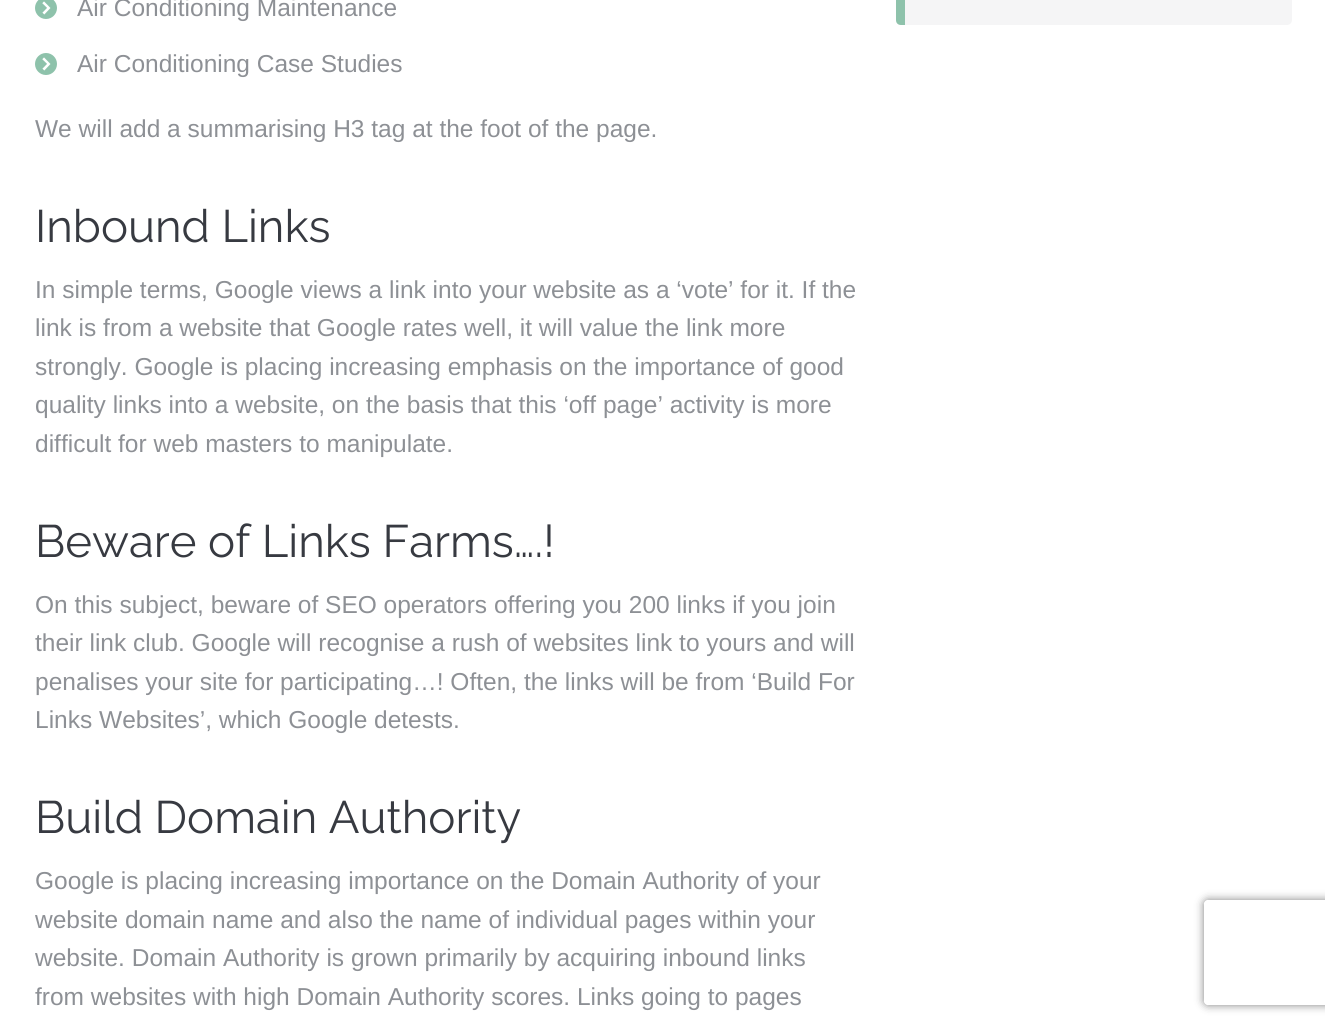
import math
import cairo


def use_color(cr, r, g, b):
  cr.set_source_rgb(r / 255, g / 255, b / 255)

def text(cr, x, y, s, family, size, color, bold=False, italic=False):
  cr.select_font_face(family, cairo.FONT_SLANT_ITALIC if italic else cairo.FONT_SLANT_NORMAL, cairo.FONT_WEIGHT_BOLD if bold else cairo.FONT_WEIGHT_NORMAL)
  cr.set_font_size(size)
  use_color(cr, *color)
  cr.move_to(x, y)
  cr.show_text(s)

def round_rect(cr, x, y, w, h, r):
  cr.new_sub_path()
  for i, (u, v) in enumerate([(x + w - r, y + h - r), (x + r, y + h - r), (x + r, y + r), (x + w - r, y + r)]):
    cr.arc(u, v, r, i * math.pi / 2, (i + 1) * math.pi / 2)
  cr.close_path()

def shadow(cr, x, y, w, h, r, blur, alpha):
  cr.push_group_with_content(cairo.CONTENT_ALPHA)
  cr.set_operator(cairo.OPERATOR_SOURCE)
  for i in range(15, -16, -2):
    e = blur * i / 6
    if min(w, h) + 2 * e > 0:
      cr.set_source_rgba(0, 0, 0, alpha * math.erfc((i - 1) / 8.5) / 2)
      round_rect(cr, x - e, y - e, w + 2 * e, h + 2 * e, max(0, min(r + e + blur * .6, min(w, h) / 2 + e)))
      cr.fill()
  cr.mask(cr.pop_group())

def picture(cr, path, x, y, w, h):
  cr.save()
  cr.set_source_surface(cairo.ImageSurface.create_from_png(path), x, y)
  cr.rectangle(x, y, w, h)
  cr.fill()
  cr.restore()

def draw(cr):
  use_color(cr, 255, 255, 255)
  cr.paint()
  picture(cr, "img_01.png", 35, 0, 22, 19)
  picture(cr, "img_02.png", 35, 53, 22, 22)
  use_color(cr, 245, 245, 246)
  round_rect(cr, 896, -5, 396, 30, 5)
  cr.fill()
  use_color(cr, 142, 194, 171)
  cr.new_path()
  cr.move_to(901, -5)
  cr.line_to(905, -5)
  cr.line_to(905, 25)
  cr.line_to(901, 25)
  cr.curve_to(898, 25, 896, 23, 896, 20)
  cr.line_to(896, 0)
  cr.curve_to(896, -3, 898, -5, 901, -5)
  cr.close_path()
  cr.fill()
  cr.save()
  cr.set_fill_rule(cairo.FILL_RULE_EVEN_ODD)
  cr.new_path()
  cr.move_to(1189, 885)
  cr.line_to(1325, 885)
  cr.line_to(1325, 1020)
  cr.line_to(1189, 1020)
  cr.close_path()
  cr.move_to(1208, 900)
  cr.line_to(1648, 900)
  cr.curve_to(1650, 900, 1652, 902, 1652, 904)
  cr.line_to(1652, 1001)
  cr.curve_to(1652, 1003, 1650, 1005, 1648, 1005)
  cr.line_to(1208, 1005)
  cr.curve_to(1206, 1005, 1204, 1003, 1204, 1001)
  cr.line_to(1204, 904)
  cr.curve_to(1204, 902, 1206, 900, 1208, 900)
  cr.close_path()
  cr.clip()
  use_color(cr, 128, 128, 128)
  shadow(cr, 1204, 900, 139, 105, 4, 4.5, 1)
  cr.restore()
  text(cr, 77, 16, "Air Conditioning Maintenance", "Liberation Sans", 24.5, (141, 144, 149))
  text(cr, 77, 72, "Air Conditioning Case Studies", "Liberation Sans", 24.5, (141, 144, 149))
  text(cr, 35, 137, "We will add a summarising H3 tag at the foot of the page.", "Liberation Sans", 24.5, (141, 144, 149))
  text(cr, 35, 242, "Inbound Links", "Raleway Thin", 45.5, (55, 58, 65))
  text(cr, 35, 298, "In simple terms, Google views a link into your website as a ‘vote’ for it. If the", "Liberation Sans", 24.5, (141, 144, 149))
  text(cr, 35, 336, "link is from a website that Google rates well, it will value the link more", "Liberation Sans", 24.5, (141, 144, 149))
  text(cr, 35, 375, "strongly. Google is placing increasing emphasis on the importance of good", "Liberation Sans", 24.5, (141, 144, 149))
  text(cr, 35, 413, "quality links into a website, on the basis that this ‘off page’ activity is more", "Liberation Sans", 24.5, (141, 144, 149))
  text(cr, 35, 452, "difficult for web masters to manipulate.", "Liberation Sans", 24.5, (141, 144, 149))
  text(cr, 35, 557, "Beware of Links Farms….!", "Raleway Thin", 45.5, (55, 58, 65))
  text(cr, 35, 613, "On this subject, beware of SEO operators offering you 200 links if you join", "Liberation Sans", 24.5, (141, 144, 149))
  text(cr, 35, 651, "their link club. Google will recognise a rush of websites link to yours and will", "Liberation Sans", 24.5, (141, 144, 149))
  text(cr, 35, 690, "penalises your site for participating…! Often, the links will be from ‘Build For", "Liberation Sans", 24.5, (141, 144, 149))
  text(cr, 35, 728, "Links Websites’, which Google detests.", "Liberation Sans", 24.5, (141, 144, 149))
  text(cr, 35, 833, "Build Domain Authority", "Raleway Thin", 45.5, (55, 58, 65))
  text(cr, 35, 889, "Google is placing increasing importance on the Domain Authority of your", "Liberation Sans", 24.5, (141, 144, 149))
  text(cr, 35, 928, "website domain name and also the name of individual pages within your", "Liberation Sans", 24.5, (141, 144, 149))
  text(cr, 35, 966, "website. Domain Authority is grown primarily by acquiring inbound links", "Liberation Sans", 24.5, (141, 144, 149))
  text(cr, 35, 1005, "from websites with high Domain Authority scores. Links going to pages", "Liberation Sans", 24.5, (141, 144, 149))


surface = cairo.ImageSurface(cairo.FORMAT_RGB24, 1325, 1029)
cr = cairo.Context(surface)
options = cairo.FontOptions()
options.set_hint_metrics(cairo.HINT_METRICS_OFF)
options.set_hint_style(cairo.HINT_STYLE_NONE)
cr.set_font_options(options)
cr.set_miter_limit(4)
draw(cr)
surface.write_to_png("out.png")
